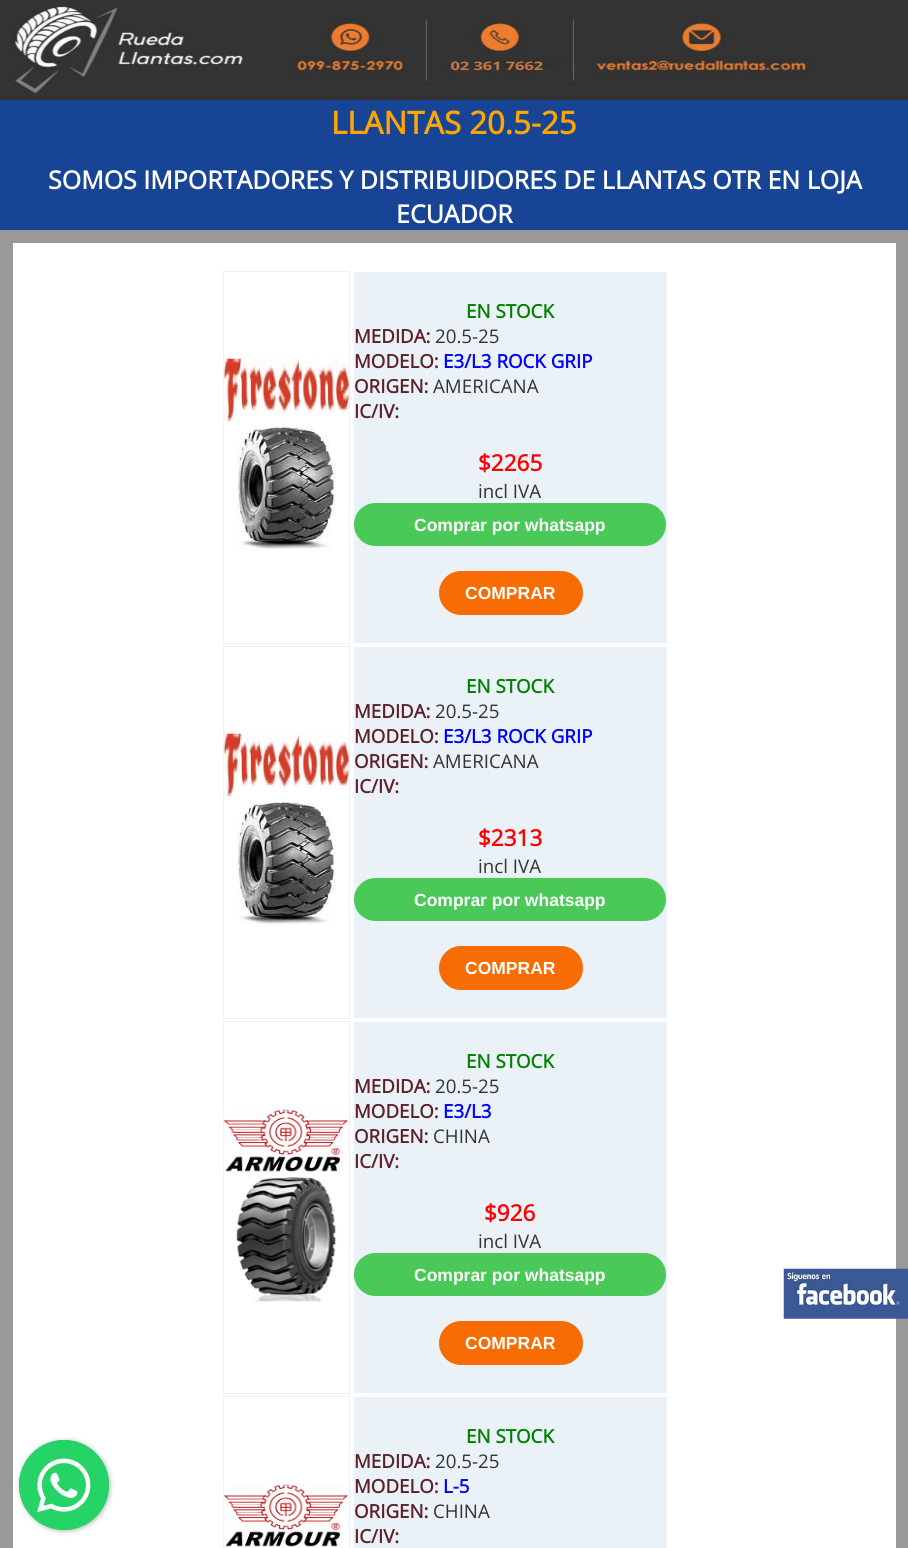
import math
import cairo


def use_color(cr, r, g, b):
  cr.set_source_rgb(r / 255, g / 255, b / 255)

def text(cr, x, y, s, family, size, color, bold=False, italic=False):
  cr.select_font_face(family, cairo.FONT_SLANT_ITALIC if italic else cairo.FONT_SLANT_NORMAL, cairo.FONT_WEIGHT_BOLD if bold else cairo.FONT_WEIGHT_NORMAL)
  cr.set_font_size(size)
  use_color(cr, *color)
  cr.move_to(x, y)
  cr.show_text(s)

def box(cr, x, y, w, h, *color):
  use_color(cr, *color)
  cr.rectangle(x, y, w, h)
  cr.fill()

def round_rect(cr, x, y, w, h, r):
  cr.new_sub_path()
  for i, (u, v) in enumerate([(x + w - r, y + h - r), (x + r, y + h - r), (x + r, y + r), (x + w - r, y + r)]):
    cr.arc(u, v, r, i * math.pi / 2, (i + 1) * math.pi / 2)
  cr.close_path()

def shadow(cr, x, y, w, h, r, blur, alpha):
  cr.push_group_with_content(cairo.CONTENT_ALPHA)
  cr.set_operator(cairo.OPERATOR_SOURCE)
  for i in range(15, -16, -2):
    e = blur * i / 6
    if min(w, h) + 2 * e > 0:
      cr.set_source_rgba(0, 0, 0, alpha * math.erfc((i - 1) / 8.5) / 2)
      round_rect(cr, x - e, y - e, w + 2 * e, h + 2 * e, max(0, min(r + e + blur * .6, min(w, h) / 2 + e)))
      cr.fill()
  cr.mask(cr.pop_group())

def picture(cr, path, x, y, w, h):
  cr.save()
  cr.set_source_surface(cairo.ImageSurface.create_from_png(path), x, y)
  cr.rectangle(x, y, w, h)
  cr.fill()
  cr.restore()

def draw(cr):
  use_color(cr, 255, 255, 255)
  cr.paint()
  box(cr, 0, 0, 908, 100, 51, 51, 51)
  picture(cr, "img_01.png", 13, 5, 798, 89)
  box(cr, 0, 100, 908, 130, 23, 68, 149)
  cr.rectangle(6.5, 236.5, 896, 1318)
  use_color(cr, 153, 153, 153)
  cr.set_line_width(13)
  cr.stroke()
  cr.rectangle(223.5, 271.5, 126, 372)
  use_color(cr, 234, 242, 248)
  cr.set_line_width(1)
  cr.stroke()
  picture(cr, "img_02.png", 223, 358, 126, 64)
  picture(cr, "img_03.png", 236, 426, 100, 123)
  box(cr, 354, 272, 313, 371, 234, 242, 248)
  use_color(cr, 74, 201, 89)
  round_rect(cr, 354, 503, 312, 43, 21.5)
  cr.fill()
  use_color(cr, 247, 109, 4)
  round_rect(cr, 439, 571, 144, 44, 22)
  cr.fill()
  cr.rectangle(223.5, 646.5, 126, 372)
  use_color(cr, 234, 242, 248)
  cr.stroke()
  picture(cr, "img_02.png", 223, 733, 126, 64)
  picture(cr, "img_04.png", 236, 801, 100, 123)
  box(cr, 354, 647, 313, 371, 234, 242, 248)
  use_color(cr, 74, 201, 89)
  round_rect(cr, 354, 878, 312, 43, 21.5)
  cr.fill()
  use_color(cr, 247, 109, 4)
  round_rect(cr, 439, 946, 144, 44, 22)
  cr.fill()
  cr.rectangle(223.5, 1021.5, 126, 372)
  use_color(cr, 234, 242, 248)
  cr.stroke()
  picture(cr, "img_05.png", 223, 1109, 125, 63)
  picture(cr, "img_06.png", 236, 1177, 101, 125)
  box(cr, 354, 1022, 313, 371, 234, 242, 248)
  use_color(cr, 74, 201, 89)
  round_rect(cr, 354, 1253, 312, 43, 21.5)
  cr.fill()
  use_color(cr, 247, 109, 4)
  round_rect(cr, 439, 1321, 144, 44, 22)
  cr.fill()
  cr.rectangle(223.5, 1396.5, 126, 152)
  use_color(cr, 234, 242, 248)
  cr.stroke()
  picture(cr, "img_05.png", 223, 1484, 125, 63)
  box(cr, 354, 1397, 313, 151, 234, 242, 248)
  picture(cr, "img_07.png", 783, 1268, 125, 51)
  use_color(cr, 60, 60, 60)
  shadow(cr, 20, 1441, 90, 90, 45, 2.5, 0.4)
  use_color(cr, 37, 211, 102)
  cr.arc(64, 1485, 45, 0, 2 * math.pi)
  cr.fill()
  picture(cr, "img_08.png", 19, 1440, 90, 90)
  text(cr, 331, 134, "LLANTAS 20.5-25", "Open Sans", 31.25, (255, 165, 0), bold=True)
  text(cr, 48, 189, "SOMOS IMPORTADORES Y DISTRIBUIDORES DE LLANTAS OTR EN LOJA", "Open Sans", 25, (255, 255, 255), bold=True)
  text(cr, 396, 223, "ECUADOR", "Open Sans", 25, (255, 255, 255), bold=True)
  text(cr, 466, 318, "EN STOCK", "Open Sans", 18.75, (0, 128, 0), bold=True)
  text(cr, 354, 343, "MEDIDA:", "Open Sans", 18.75, (94, 33, 41), bold=True)
  text(cr, 435, 343, "20.5-25", "Open Sans", 18.75, (51, 51, 51))
  text(cr, 354, 368, "MODELO:", "Open Sans", 18.75, (94, 33, 41), bold=True)
  text(cr, 443, 368, "E3/L3 ROCK GRIP", "Open Sans", 18.75, (0, 0, 255), bold=True)
  text(cr, 354, 393, "ORIGEN:", "Open Sans", 18.75, (94, 33, 41), bold=True)
  text(cr, 433, 393, "AMERICANA", "Open Sans", 18.75, (51, 51, 51))
  text(cr, 354, 418, "IC/IV:", "Open Sans", 18.75, (94, 33, 41), bold=True)
  text(cr, 478, 471, "$2265", "Open Sans", 22.5, (255, 0, 0), bold=True)
  text(cr, 478, 498, "incl IVA", "Open Sans", 18.75, (51, 51, 51))
  text(cr, 414, 531, "Comprar por whatsapp", "Liberation Sans", 17.5, (255, 255, 255), bold=True)
  text(cr, 465, 599, "COMPRAR", "Liberation Sans", 17.5, (255, 255, 255), bold=True)
  text(cr, 466, 693, "EN STOCK", "Open Sans", 18.75, (0, 128, 0), bold=True)
  text(cr, 354, 718, "MEDIDA:", "Open Sans", 18.75, (94, 33, 41), bold=True)
  text(cr, 435, 718, "20.5-25", "Open Sans", 18.75, (51, 51, 51))
  text(cr, 354, 743, "MODELO:", "Open Sans", 18.75, (94, 33, 41), bold=True)
  text(cr, 443, 743, "E3/L3 ROCK GRIP", "Open Sans", 18.75, (0, 0, 255), bold=True)
  text(cr, 354, 768, "ORIGEN:", "Open Sans", 18.75, (94, 33, 41), bold=True)
  text(cr, 433, 768, "AMERICANA", "Open Sans", 18.75, (51, 51, 51))
  text(cr, 354, 793, "IC/IV:", "Open Sans", 18.75, (94, 33, 41), bold=True)
  text(cr, 478, 846, "$2313", "Open Sans", 22.5, (255, 0, 0), bold=True)
  text(cr, 478, 873, "incl IVA", "Open Sans", 18.75, (51, 51, 51))
  text(cr, 414, 906, "Comprar por whatsapp", "Liberation Sans", 17.5, (255, 255, 255), bold=True)
  text(cr, 465, 974, "COMPRAR", "Liberation Sans", 17.5, (255, 255, 255), bold=True)
  text(cr, 466, 1068, "EN STOCK", "Open Sans", 18.75, (0, 128, 0), bold=True)
  text(cr, 354, 1093, "MEDIDA:", "Open Sans", 18.75, (94, 33, 41), bold=True)
  text(cr, 435, 1093, "20.5-25", "Open Sans", 18.75, (51, 51, 51))
  text(cr, 354, 1118, "MODELO:", "Open Sans", 18.75, (94, 33, 41), bold=True)
  text(cr, 443, 1118, "E3/L3", "Open Sans", 18.75, (0, 0, 255), bold=True)
  text(cr, 354, 1143, "ORIGEN:", "Open Sans", 18.75, (94, 33, 41), bold=True)
  text(cr, 433, 1143, "CHINA", "Open Sans", 18.75, (51, 51, 51))
  text(cr, 354, 1168, "IC/IV:", "Open Sans", 18.75, (94, 33, 41), bold=True)
  text(cr, 484, 1221, "$926", "Open Sans", 22.5, (255, 0, 0), bold=True)
  text(cr, 478, 1248, "incl IVA", "Open Sans", 18.75, (51, 51, 51))
  text(cr, 414, 1281, "Comprar por whatsapp", "Liberation Sans", 17.5, (255, 255, 255), bold=True)
  text(cr, 465, 1349, "COMPRAR", "Liberation Sans", 17.5, (255, 255, 255), bold=True)
  text(cr, 466, 1443, "EN STOCK", "Open Sans", 18.75, (0, 128, 0), bold=True)
  text(cr, 354, 1468, "MEDIDA:", "Open Sans", 18.75, (94, 33, 41), bold=True)
  text(cr, 435, 1468, "20.5-25", "Open Sans", 18.75, (51, 51, 51))
  text(cr, 354, 1493, "MODELO:", "Open Sans", 18.75, (94, 33, 41), bold=True)
  text(cr, 443, 1493, "L-5", "Open Sans", 18.75, (0, 0, 255), bold=True)
  text(cr, 354, 1518, "ORIGEN:", "Open Sans", 18.75, (94, 33, 41), bold=True)
  text(cr, 433, 1518, "CHINA", "Open Sans", 18.75, (51, 51, 51))
  text(cr, 354, 1543, "IC/IV:", "Open Sans", 18.75, (94, 33, 41), bold=True)


surface = cairo.ImageSurface(cairo.FORMAT_RGB24, 908, 1548)
cr = cairo.Context(surface)
options = cairo.FontOptions()
options.set_hint_metrics(cairo.HINT_METRICS_OFF)
options.set_hint_style(cairo.HINT_STYLE_NONE)
cr.set_font_options(options)
cr.set_miter_limit(4)
draw(cr)
surface.write_to_png("out.png")
